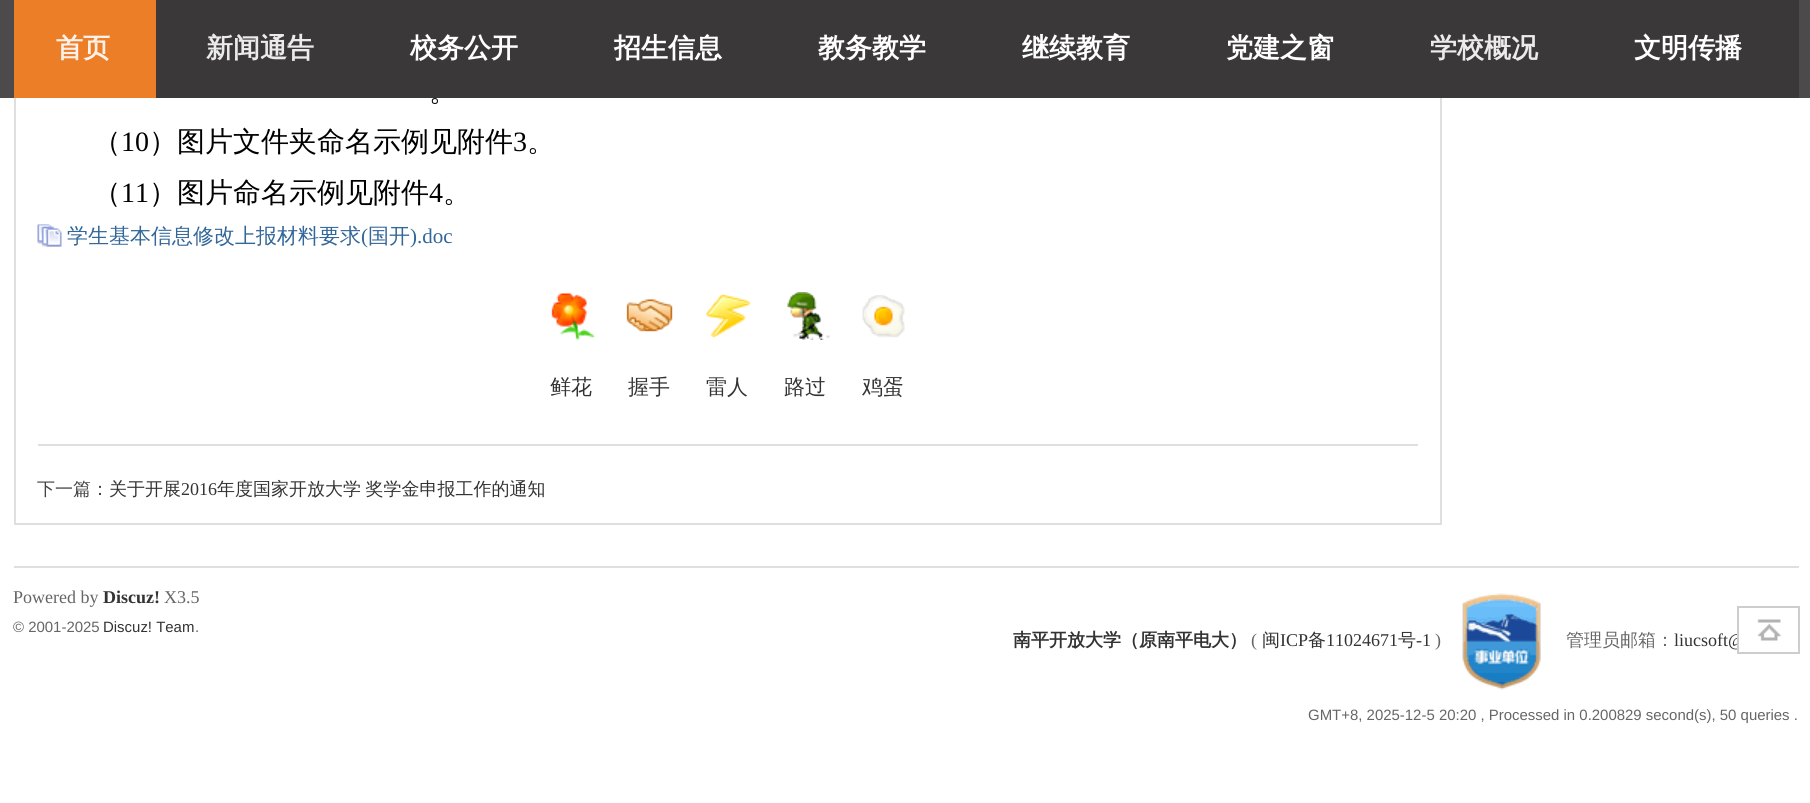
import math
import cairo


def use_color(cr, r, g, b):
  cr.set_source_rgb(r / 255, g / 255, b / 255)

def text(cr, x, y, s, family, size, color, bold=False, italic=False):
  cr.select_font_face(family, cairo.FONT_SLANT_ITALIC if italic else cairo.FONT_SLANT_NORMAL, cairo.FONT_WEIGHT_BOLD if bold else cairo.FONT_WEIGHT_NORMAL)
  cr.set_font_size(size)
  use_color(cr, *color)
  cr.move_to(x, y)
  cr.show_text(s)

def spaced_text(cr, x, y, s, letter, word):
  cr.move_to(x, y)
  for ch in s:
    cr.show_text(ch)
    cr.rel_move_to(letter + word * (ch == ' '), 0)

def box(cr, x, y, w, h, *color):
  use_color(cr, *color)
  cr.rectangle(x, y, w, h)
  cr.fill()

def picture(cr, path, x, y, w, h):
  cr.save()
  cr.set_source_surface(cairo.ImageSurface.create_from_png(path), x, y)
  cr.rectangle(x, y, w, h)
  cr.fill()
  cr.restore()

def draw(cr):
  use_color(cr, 255, 255, 255)
  cr.paint()
  cr.rectangle(15, -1, 1426, 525)
  use_color(cr, 223, 223, 223)
  cr.stroke()
  cr.set_source_rgba(0.224, 0.216, 0.216, 0.9)
  cr.rectangle(0, 0, 1810, 98)
  cr.fill()
  cr.rectangle(14, 0, 1785, 98)
  cr.fill()
  cr.set_source_rgba(1, 0.529, 0.153, 0.9)
  cr.rectangle(14, 0, 142, 98)
  cr.fill()
  picture(cr, "img_01.png", 37, 224, 25, 23)
  picture(cr, "img_02.png", 551, 293, 44, 47)
  picture(cr, "img_03.png", 626, 299, 47, 33)
  picture(cr, "img_04.png", 706, 294, 45, 44)
  picture(cr, "img_05.png", 787, 292, 43, 48)
  picture(cr, "img_06.png", 862, 295, 43, 43)
  box(cr, 38, 444, 1380, 2, 223, 223, 223)
  box(cr, 14, 566, 1785, 2, 223, 223, 223)
  picture(cr, "img_07.png", 1462, 593, 79, 97)
  picture(cr, "img_08.png", 1757, 619, 24, 22)
  text(cr, 56, 57, "首页", "WenQuanYi Zen Hei", 27, (253, 242, 234), bold=True)
  text(cr, 206, 57, "新闻通告", "WenQuanYi Zen Hei", 27, (235, 235, 235), bold=True)
  text(cr, 410, 57, "校务公开", "WenQuanYi Zen Hei", 27, (255, 255, 255), bold=True)
  text(cr, 614, 57, "招生信息", "WenQuanYi Zen Hei", 27, (255, 255, 255), bold=True)
  text(cr, 818, 57, "教务教学", "WenQuanYi Zen Hei", 27, (255, 255, 255), bold=True)
  text(cr, 1022, 57, "继续教育", "WenQuanYi Zen Hei", 27, (255, 255, 255), bold=True)
  text(cr, 1226, 57, "党建之窗", "WenQuanYi Zen Hei", 27, (255, 255, 255), bold=True)
  text(cr, 1430, 57, "学校概况", "WenQuanYi Zen Hei", 27, (235, 235, 235), bold=True)
  text(cr, 1634, 57, "文明传播", "WenQuanYi Zen Hei", 27, (255, 255, 255), bold=True)
  text(cr, 429, 101, "。", "WenQuanYi Zen Hei Medium", 28, (0, 0, 0))
  text(cr, 93, 151, "（", "WenQuanYi Zen Hei Medium", 28, (0, 0, 0))
  text(cr, 121, 151, "10", "Liberation Serif", 28, (0, 0, 0))
  text(cr, 149, 151, "）图片文件夹命名示例见附件", "WenQuanYi Zen Hei Medium", 28, (0, 0, 0))
  text(cr, 513, 151, "3", "Liberation Serif", 28, (0, 0, 0))
  text(cr, 527, 151, "。", "WenQuanYi Zen Hei Medium", 28, (0, 0, 0))
  text(cr, 93, 202, "（", "WenQuanYi Zen Hei Medium", 28, (0, 0, 0))
  text(cr, 121, 202, "11", "Liberation Serif", 28, (0, 0, 0))
  text(cr, 149, 202, "）图片命名示例见附件", "WenQuanYi Zen Hei Medium", 28, (0, 0, 0))
  text(cr, 429, 202, "4", "Liberation Serif", 28, (0, 0, 0))
  text(cr, 443, 202, "。", "WenQuanYi Zen Hei Medium", 28, (0, 0, 0))
  text(cr, 67, 243, "学生基本信息修改上报材料要求", "WenQuanYi Zen Hei Medium", 21, (51, 102, 153))
  text(cr, 361, 243, "(", "Liberation Serif", 21, (51, 102, 153))
  text(cr, 368, 243, "国开", "WenQuanYi Zen Hei Medium", 21, (51, 102, 153))
  text(cr, 410, 243, ").doc", "Liberation Serif", 21, (51, 102, 153))
  text(cr, 550, 394, "鲜花", "WenQuanYi Zen Hei Medium", 21, (51, 51, 51))
  text(cr, 628, 394, "握手", "WenQuanYi Zen Hei Medium", 21, (51, 51, 51))
  text(cr, 706, 394, "雷人", "WenQuanYi Zen Hei Medium", 21, (51, 51, 51))
  text(cr, 784, 394, "路过", "WenQuanYi Zen Hei Medium", 21, (51, 51, 51))
  text(cr, 862, 394, "鸡蛋", "WenQuanYi Zen Hei Medium", 21, (51, 51, 51))
  text(cr, 37, 495, "下一篇：", "WenQuanYi Zen Hei Medium", 18, (68, 68, 68))
  text(cr, 109, 495, "关于开展", "WenQuanYi Zen Hei Medium", 18, (51, 51, 51))
  text(cr, 181, 495, "2016", "Liberation Serif", 18, (51, 51, 51))
  cr.select_font_face("WenQuanYi Zen Hei Medium")
  spaced_text(cr, 217, 495, "年度国家开放大学 奖学金申报工作的通知", 0, -1)
  text(cr, 13, 603, "Powered by", "Liberation Serif", 18, (102, 102, 102))
  text(cr, 103, 603, "Discuz!", "Liberation Serif", 18, (51, 51, 51), bold=True)
  text(cr, 164, 603, "X3.5", "Liberation Serif", 18, (102, 102, 102))
  text(cr, 13, 632, "© 2001-2025", "Liberation Sans", 14.95, (102, 102, 102))
  text(cr, 103, 632, "Discuz! Team", "Liberation Sans", 14.95, (51, 51, 51))
  text(cr, 195, 632, ".", "Liberation Sans", 14.95, (102, 102, 102))
  text(cr, 1013, 646, "南平开放大学（原南平电大）", "WenQuanYi Zen Hei", 18, (51, 51, 51), bold=True)
  text(cr, 1251, 646, "(", "Liberation Serif", 18, (102, 102, 102))
  text(cr, 1262, 646, "闽", "WenQuanYi Zen Hei Medium", 18, (51, 51, 51))
  text(cr, 1280, 646, "ICP", "Liberation Serif", 18, (51, 51, 51))
  text(cr, 1308, 646, "备", "WenQuanYi Zen Hei Medium", 18, (51, 51, 51))
  text(cr, 1326, 646, "11024671", "Liberation Serif", 18, (51, 51, 51))
  text(cr, 1398, 646, "号", "WenQuanYi Zen Hei Medium", 18, (51, 51, 51))
  text(cr, 1416, 646, "-1", "Liberation Serif", 18, (51, 51, 51))
  text(cr, 1435, 646, ")", "Liberation Serif", 18, (102, 102, 102))
  text(cr, 1566, 646, "管理员邮箱：", "WenQuanYi Zen Hei Medium", 18, (102, 102, 102))
  text(cr, 1674, 646, "liucsoft@", "Liberation Serif", 18, (51, 51, 51))
  text(cr, 1308, 720, "GMT+8, 2025-12-5 20:20 , Processed in 0.200829 second(s), 50 queries .", "Liberation Sans", 14.95, (102, 102, 102))
  box(cr, 1739, 634, 5, 15, 255, 255, 255)
  cr.rectangle(1738, 607, 61, 46)
  use_color(cr, 205, 205, 205)
  cr.stroke()


surface = cairo.ImageSurface(cairo.FORMAT_RGB24, 1810, 803)
cr = cairo.Context(surface)
options = cairo.FontOptions()
options.set_hint_metrics(cairo.HINT_METRICS_OFF)
options.set_hint_style(cairo.HINT_STYLE_NONE)
cr.set_font_options(options)
cr.set_miter_limit(4)
draw(cr)
surface.write_to_png("out.png")
